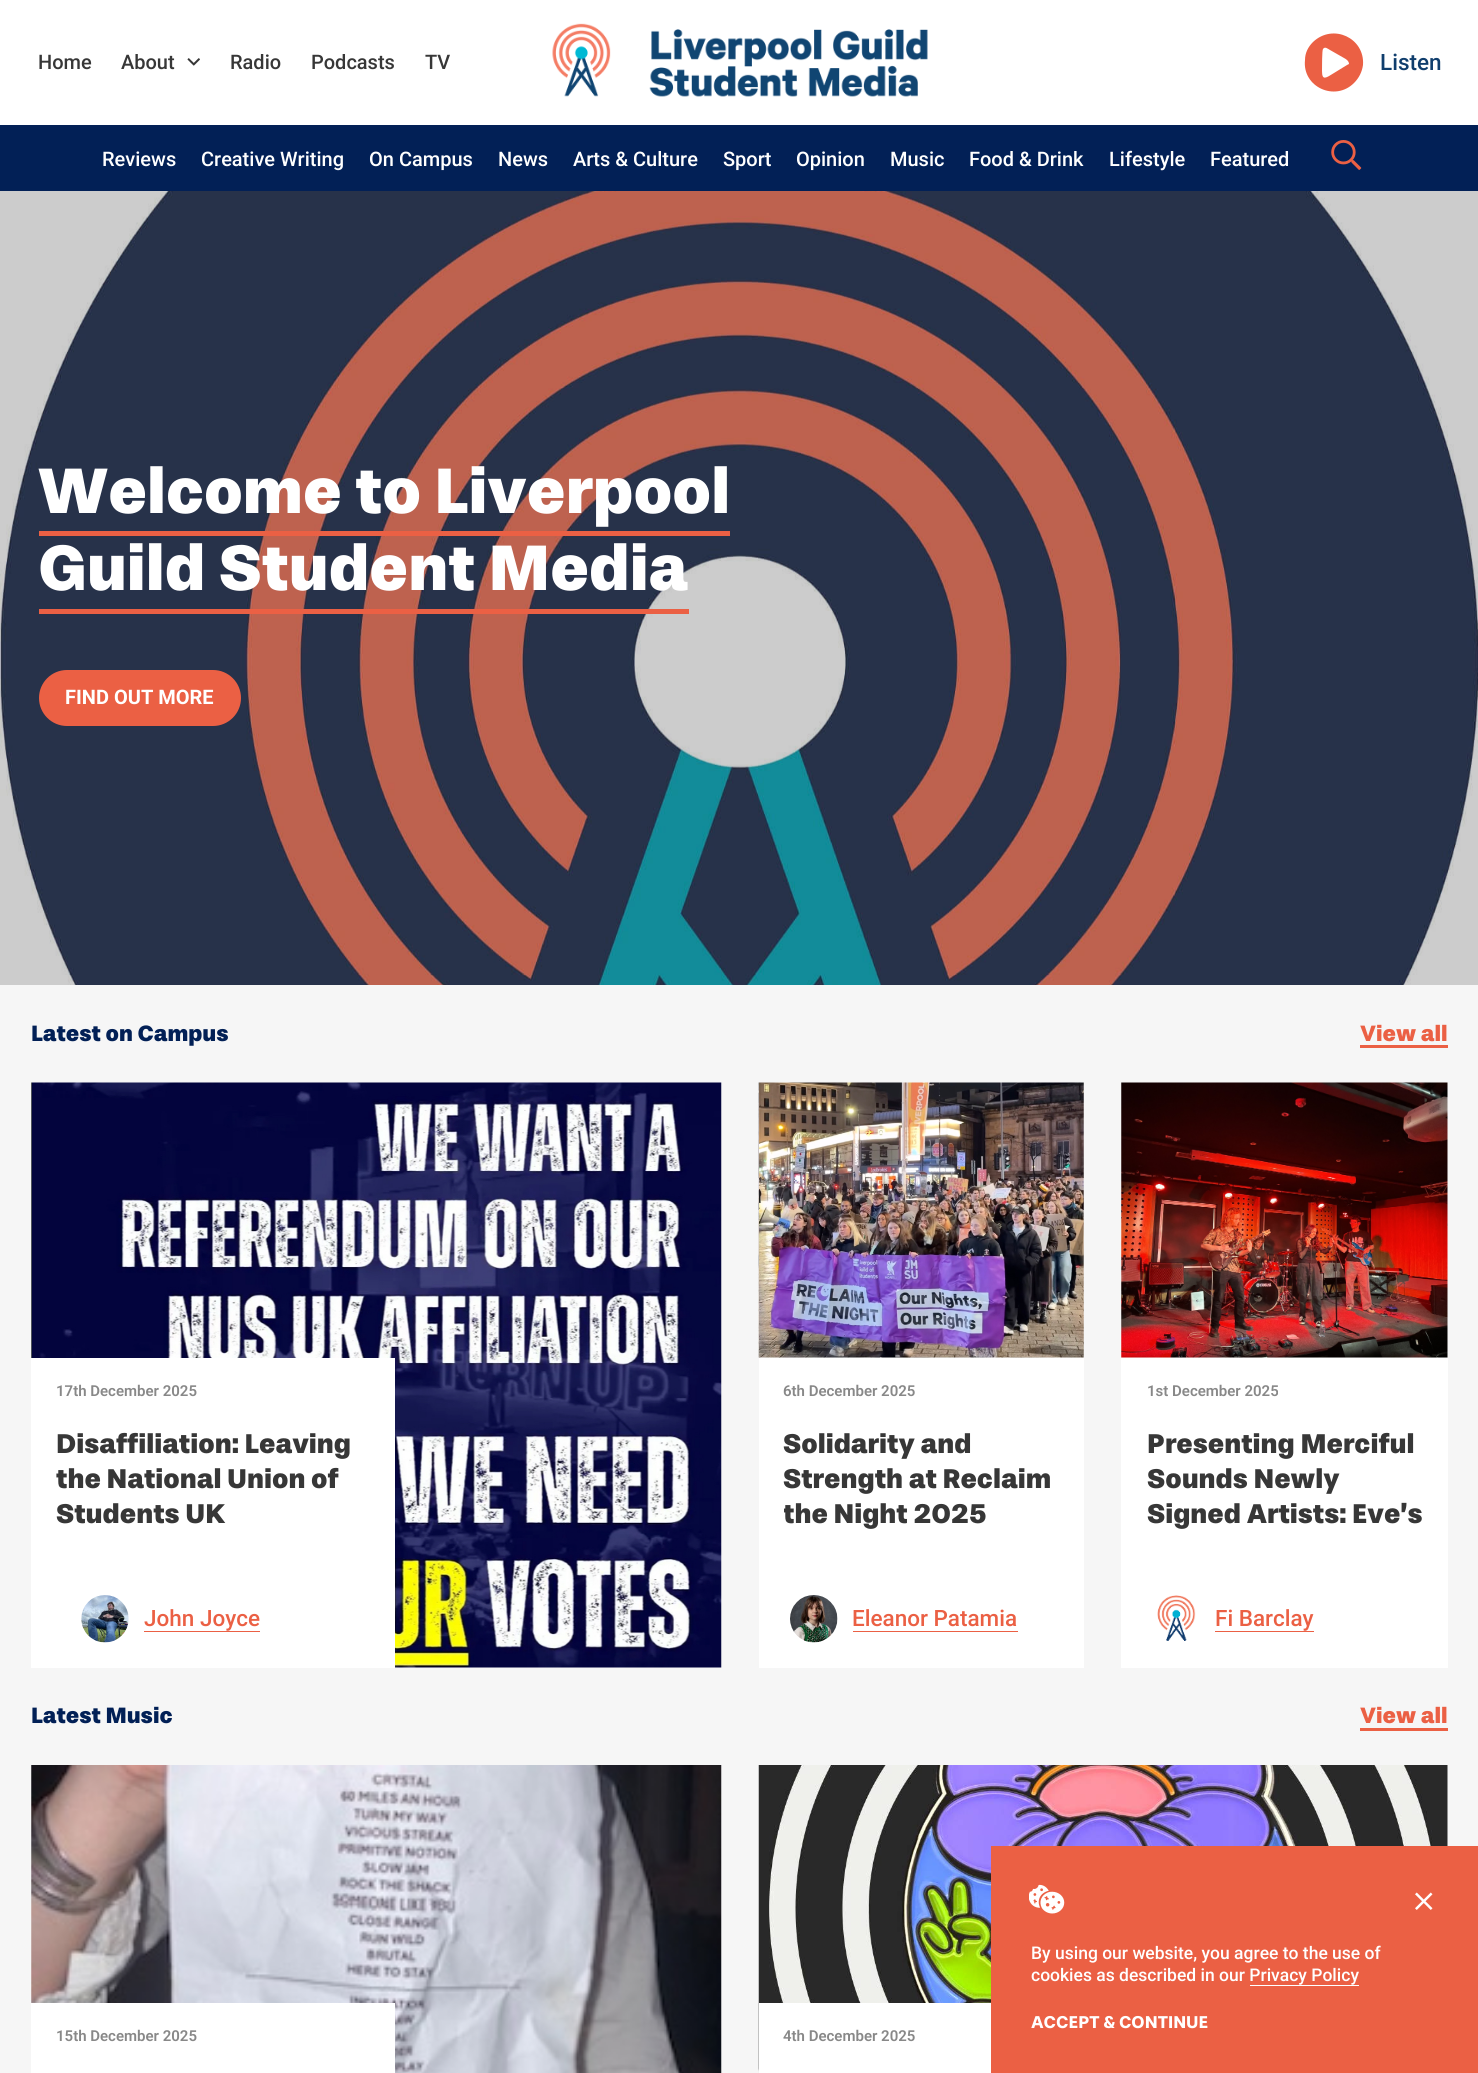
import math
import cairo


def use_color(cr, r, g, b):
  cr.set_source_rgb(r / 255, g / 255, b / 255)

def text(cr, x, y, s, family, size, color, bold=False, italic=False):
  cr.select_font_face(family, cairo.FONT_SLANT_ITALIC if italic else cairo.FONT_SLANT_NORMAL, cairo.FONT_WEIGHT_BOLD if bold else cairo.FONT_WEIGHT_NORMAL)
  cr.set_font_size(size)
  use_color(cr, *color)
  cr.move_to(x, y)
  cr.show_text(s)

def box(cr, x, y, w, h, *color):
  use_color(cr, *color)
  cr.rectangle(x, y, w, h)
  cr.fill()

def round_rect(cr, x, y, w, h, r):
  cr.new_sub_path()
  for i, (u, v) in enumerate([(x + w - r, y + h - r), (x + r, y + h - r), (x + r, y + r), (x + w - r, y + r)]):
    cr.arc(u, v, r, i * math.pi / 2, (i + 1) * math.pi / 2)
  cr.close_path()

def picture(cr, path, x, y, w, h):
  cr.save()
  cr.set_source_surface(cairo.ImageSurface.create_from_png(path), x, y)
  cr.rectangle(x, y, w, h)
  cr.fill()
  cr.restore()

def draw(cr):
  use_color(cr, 2, 32, 86)
  cr.paint()
  box(cr, 0, 0, 1478, 125, 255, 255, 255)
  picture(cr, "img_01.png", 187, 58, 13, 8)
  picture(cr, "img_02.png", 552, 23, 376, 74)
  use_color(cr, 235, 96, 68)
  cr.new_path()
  cr.move_to(1313, 42)
  cr.curve_to(1333, 23, 1365, 38, 1363, 65)
  cr.curve_to(1362, 72, 1359, 78, 1354, 83)
  cr.curve_to(1335, 102, 1302, 87, 1305, 60)
  cr.curve_to(1305, 53, 1308, 47, 1313, 42)
  cr.close_path()
  cr.move_to(1347, 65)
  cr.line_to(1349, 64)
  cr.curve_to(1349, 61, 1346, 59, 1344, 58)
  cr.line_to(1330, 50)
  cr.curve_to(1328, 49, 1325, 46, 1323, 49)
  cr.curve_to(1322, 50, 1322, 67, 1322, 71)
  cr.curve_to(1322, 81, 1326, 78, 1334, 73)
  cr.close_path()
  cr.fill()
  picture(cr, "img_03.png", 1331, 140, 31, 30)
  picture(cr, "img_04.png", 0, 191, 1478, 794)
  box(cr, 39, 531, 691, 5, 235, 96, 68)
  box(cr, 39, 609, 650, 5, 235, 96, 68)
  round_rect(cr, 39, 670, 202, 56, 28)
  cr.fill()
  box(cr, 0, 985, 1478, 1088, 246, 246, 246)
  box(cr, 1360, 1045, 88, 3, 235, 96, 68)
  picture(cr, "img_05.png", 31, 1082, 691, 586)
  box(cr, 31, 1358, 364, 310, 255, 255, 255)
  picture(cr, "img_06.png", 81, 1595, 48, 48)
  box(cr, 144, 1631, 116, 1, 235, 96, 68)
  picture(cr, "img_07.png", 758, 1082, 326, 276)
  box(cr, 759, 1358, 325, 310, 255, 255, 255)
  picture(cr, "img_08.png", 790, 1595, 48, 48)
  box(cr, 853, 1631, 165, 1, 235, 96, 68)
  picture(cr, "img_09.png", 1121, 1082, 327, 276)
  box(cr, 1121, 1358, 327, 310, 255, 255, 255)
  picture(cr, "img_10.png", 1157, 1595, 39, 46)
  box(cr, 1215, 1631, 99, 1, 235, 96, 68)
  box(cr, 1360, 1728, 88, 3, 235, 96, 68)
  picture(cr, "img_11.png", 31, 1765, 691, 308)
  box(cr, 31, 2003, 364, 70, 255, 255, 255)
  picture(cr, "img_12.png", 758, 1765, 690, 308)
  box(cr, 759, 2003, 232, 70, 255, 255, 255)
  box(cr, 991, 1846, 487, 227, 235, 96, 68)
  picture(cr, "img_13.png", 1029, 1884, 36, 30)
  picture(cr, "img_14.png", 1415, 1892, 18, 18)
  box(cr, 1250, 1985, 109, 1, 255, 255, 255)
  text(cr, 38, 69, "Home", "Roboto Medium", 20, (55, 55, 55))
  text(cr, 121, 69, "About", "Roboto Medium", 20, (55, 55, 55))
  text(cr, 230, 69, "Radio", "Roboto Medium", 20, (55, 55, 55))
  text(cr, 311, 69, "Podcasts", "Roboto Medium", 20, (55, 55, 55))
  text(cr, 425, 69, "TV", "Roboto Medium", 20, (55, 55, 55))
  text(cr, 1380, 70, "Listen", "Roboto Medium", 22.5, (16, 62, 109))
  text(cr, 102, 166, "Reviews", "Roboto Medium", 20, (255, 255, 255))
  text(cr, 201, 166, "Creative Writing", "Roboto Medium", 20, (255, 255, 255))
  text(cr, 369, 166, "On Campus", "Roboto Medium", 20, (255, 255, 255))
  text(cr, 498, 166, "News", "Roboto Medium", 20, (255, 255, 255))
  text(cr, 573, 166, "Arts & Culture", "Roboto Medium", 20, (255, 255, 255))
  text(cr, 723, 166, "Sport", "Roboto Medium", 20, (255, 255, 255))
  text(cr, 796, 166, "Opinion", "Roboto Medium", 20, (255, 255, 255))
  text(cr, 890, 166, "Music", "Roboto Medium", 20, (255, 255, 255))
  text(cr, 969, 166, "Food & Drink", "Roboto Medium", 20, (255, 255, 255))
  text(cr, 1109, 166, "Lifestyle", "Roboto Medium", 20, (255, 255, 255))
  text(cr, 1210, 166, "Featured", "Roboto Medium", 20, (255, 255, 255))
  text(cr, 38, 513, "Welcome to Liverpool", "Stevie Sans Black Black", 65, (255, 255, 255))
  text(cr, 38, 590, "Guild Student Media", "Stevie Sans Black Black", 65, (255, 255, 255))
  text(cr, 65, 704, "FIND OUT MORE", "Roboto", 20, (255, 255, 255), bold=True)
  text(cr, 31, 1041, "Latest on Campus", "Stevie Sans Black Black", 22.5, (2, 32, 86))
  text(cr, 1360, 1041, "View all", "Stevie Sans Black Black", 22.5, (235, 96, 68))
  text(cr, 56, 1396, "17th December 2025", "Roboto SemiBold", 15, (136, 136, 136))
  text(cr, 56, 1453, "Disaffiliation: Leaving", "Stevie Sans Black Black", 27.5, (55, 55, 55))
  text(cr, 56, 1488, "the National Union of", "Stevie Sans Black Black", 27.5, (55, 55, 55))
  text(cr, 56, 1523, "Students UK", "Stevie Sans Black Black", 27.5, (55, 55, 55))
  text(cr, 144, 1626, "John Joyce", "Roboto Medium", 22.5, (235, 96, 68))
  text(cr, 783, 1396, "6th December 2025", "Roboto SemiBold", 15, (136, 136, 136))
  text(cr, 783, 1453, "Solidarity and", "Stevie Sans Black Black", 27.5, (55, 55, 55))
  text(cr, 783, 1488, "Strength at Reclaim", "Stevie Sans Black Black", 27.5, (55, 55, 55))
  cr.save()
  cr.rectangle(784, 1428, 275, 105)
  cr.clip()
  text(cr, 783, 1523, "the Night 2025", "Stevie Sans Black Black", 27.5, (55, 55, 55))
  cr.restore()
  text(cr, 852, 1626, "Eleanor Patamia", "Roboto Medium", 22.5, (235, 96, 68))
  text(cr, 1147, 1396, "1st December 2025", "Roboto SemiBold", 15, (136, 136, 136))
  text(cr, 1147, 1453, "Presenting Merciful", "Stevie Sans Black Black", 27.5, (55, 55, 55))
  text(cr, 1147, 1488, "Sounds Newly", "Stevie Sans Black Black", 27.5, (55, 55, 55))
  text(cr, 1147, 1523, "Signed Artists: Eve’s", "Stevie Sans Black Black", 27.5, (55, 55, 55))
  text(cr, 1215, 1626, "Fi Barclay", "Roboto Medium", 22.5, (235, 96, 68))
  text(cr, 31, 1723, "Latest Music", "Stevie Sans Black Black", 22.5, (2, 32, 86))
  text(cr, 1360, 1723, "View all", "Stevie Sans Black Black", 22.5, (235, 96, 68))
  text(cr, 56, 2041, "15th December 2025", "Roboto SemiBold", 15, (136, 136, 136))
  text(cr, 783, 2041, "4th December 2025", "Roboto SemiBold", 15, (136, 136, 136))
  text(cr, 1031, 1959, "By using our website, you agree to the use of", "Roboto Medium", 17.5, (255, 255, 255))
  text(cr, 1031, 1981, "cookies as described in our Privacy Policy", "Roboto Medium", 17.5, (255, 255, 255))
  text(cr, 1031, 2028, "ACCEPT & CONTINUE", "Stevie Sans", 17.5, (255, 255, 255), bold=True)


surface = cairo.ImageSurface(cairo.FORMAT_RGB24, 1478, 2073)
cr = cairo.Context(surface)
options = cairo.FontOptions()
options.set_hint_metrics(cairo.HINT_METRICS_OFF)
options.set_hint_style(cairo.HINT_STYLE_NONE)
cr.set_font_options(options)
cr.set_miter_limit(4)
draw(cr)
surface.write_to_png("out.png")
